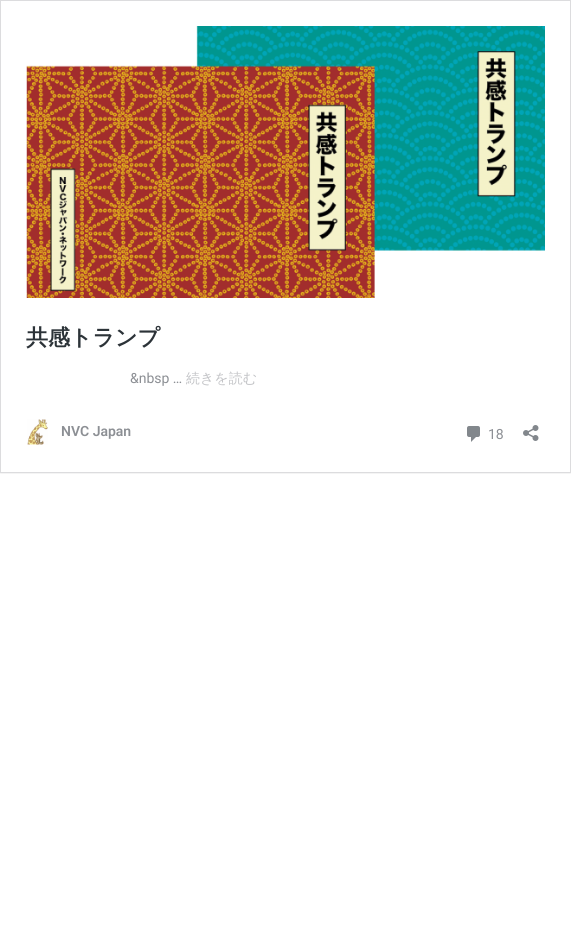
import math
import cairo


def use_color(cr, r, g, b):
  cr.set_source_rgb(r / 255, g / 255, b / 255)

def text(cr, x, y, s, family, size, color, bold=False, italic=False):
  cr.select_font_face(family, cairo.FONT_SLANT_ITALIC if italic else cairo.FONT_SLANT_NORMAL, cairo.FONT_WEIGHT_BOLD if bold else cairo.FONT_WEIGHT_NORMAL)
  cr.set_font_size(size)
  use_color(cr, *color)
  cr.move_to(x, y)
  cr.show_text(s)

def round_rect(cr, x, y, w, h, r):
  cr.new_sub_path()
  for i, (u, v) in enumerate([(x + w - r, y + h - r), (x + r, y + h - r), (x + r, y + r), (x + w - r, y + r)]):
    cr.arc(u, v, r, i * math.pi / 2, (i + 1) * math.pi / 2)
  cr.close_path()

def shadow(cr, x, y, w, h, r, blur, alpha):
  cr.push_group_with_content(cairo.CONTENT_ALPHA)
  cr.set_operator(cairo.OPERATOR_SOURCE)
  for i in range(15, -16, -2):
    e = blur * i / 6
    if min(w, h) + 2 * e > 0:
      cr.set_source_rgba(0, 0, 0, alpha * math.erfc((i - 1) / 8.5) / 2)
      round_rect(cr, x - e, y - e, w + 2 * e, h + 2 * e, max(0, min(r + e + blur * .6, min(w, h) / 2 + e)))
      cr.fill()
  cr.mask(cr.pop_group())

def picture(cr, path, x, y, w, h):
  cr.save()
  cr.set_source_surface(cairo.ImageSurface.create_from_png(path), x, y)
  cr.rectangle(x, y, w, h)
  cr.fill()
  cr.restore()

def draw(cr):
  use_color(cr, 255, 255, 255)
  cr.paint()
  cr.save()
  cr.rectangle(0, 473, 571, 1)
  cr.clip()
  use_color(cr, 0, 0, 0)
  shadow(cr, 0, 1, 571, 473, 0, 0.5, 0.05)
  cr.restore()
  cr.rectangle(0.5, 0.5, 570, 472)
  use_color(cr, 220, 220, 222)
  cr.set_line_width(1)
  cr.stroke()
  picture(cr, "img_01.png", 26, 26, 519, 272)
  picture(cr, "img_02.png", 27, 419, 21, 26)
  picture(cr, "img_03.png", 467, 426, 13, 16)
  picture(cr, "img_04.png", 523, 425, 16, 16)
  text(cr, 26, 345, "共感トランプ", "WenQuanYi Zen Hei", 22, (44, 51, 56), bold=True)
  text(cr, 130, 383, "&nbsp …", "Roboto", 14, (140, 143, 148))
  text(cr, 186, 383, "続きを読む", "WenQuanYi Zen Hei Medium", 14, (195, 196, 199))
  text(cr, 61, 436, "NVC Japan", "Roboto SemiBold", 14, (140, 143, 148))
  text(cr, 488, 439, "18", "Roboto", 14, (140, 143, 148))


surface = cairo.ImageSurface(cairo.FORMAT_RGB24, 571, 948)
cr = cairo.Context(surface)
options = cairo.FontOptions()
options.set_hint_metrics(cairo.HINT_METRICS_OFF)
options.set_hint_style(cairo.HINT_STYLE_NONE)
cr.set_font_options(options)
cr.set_miter_limit(4)
draw(cr)
surface.write_to_png("out.png")
